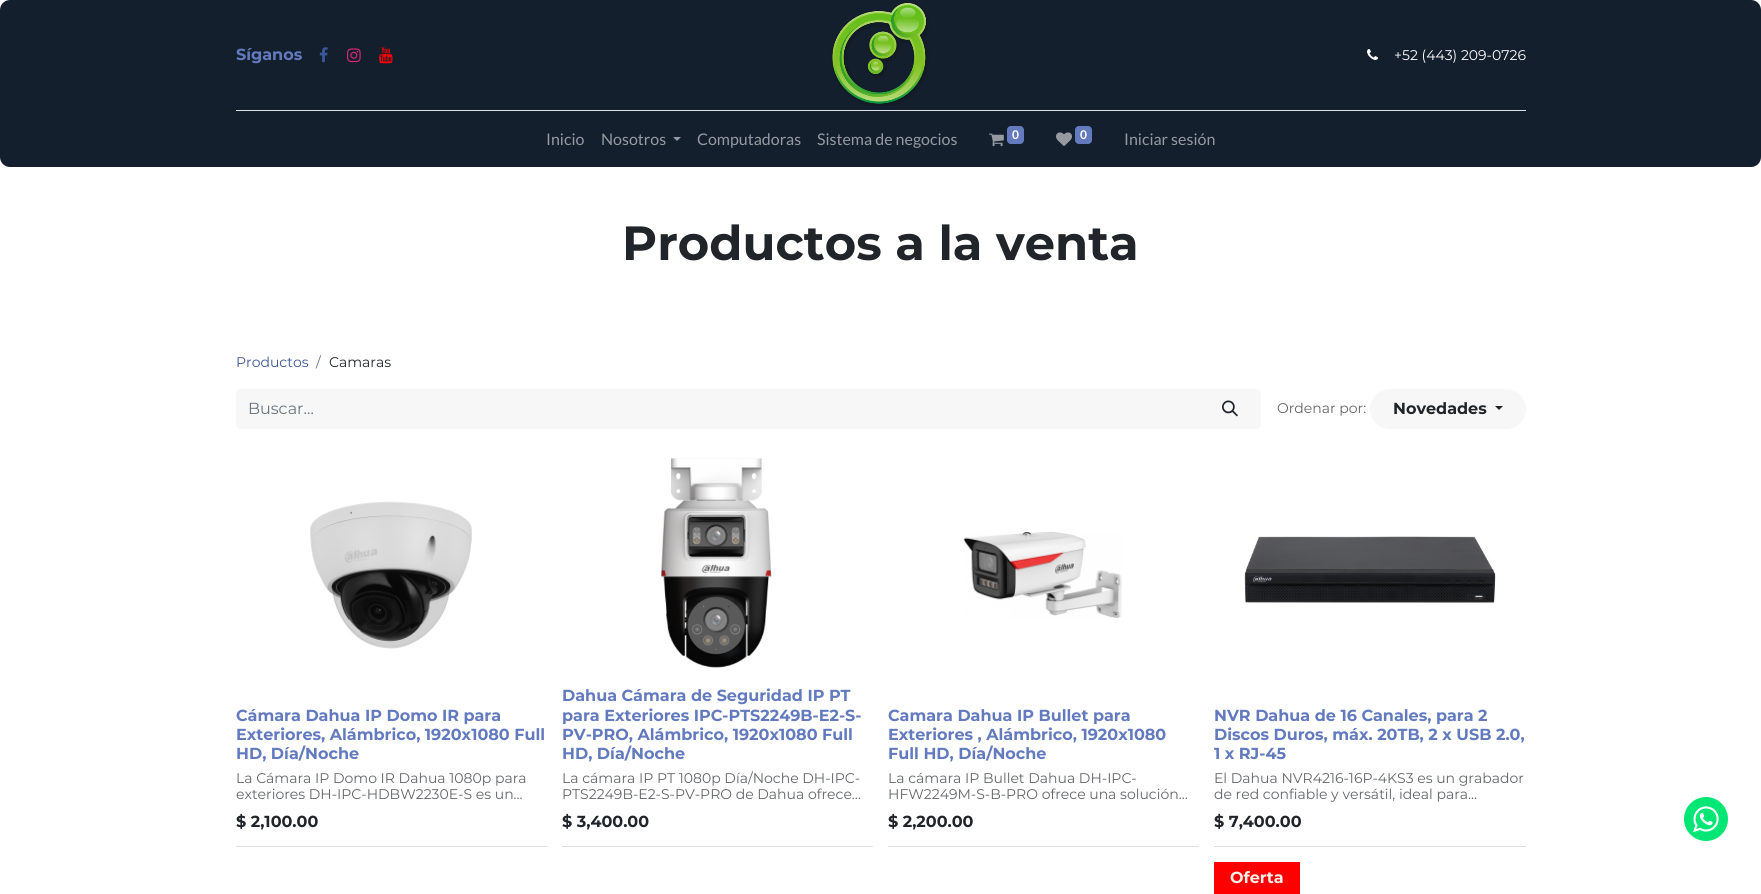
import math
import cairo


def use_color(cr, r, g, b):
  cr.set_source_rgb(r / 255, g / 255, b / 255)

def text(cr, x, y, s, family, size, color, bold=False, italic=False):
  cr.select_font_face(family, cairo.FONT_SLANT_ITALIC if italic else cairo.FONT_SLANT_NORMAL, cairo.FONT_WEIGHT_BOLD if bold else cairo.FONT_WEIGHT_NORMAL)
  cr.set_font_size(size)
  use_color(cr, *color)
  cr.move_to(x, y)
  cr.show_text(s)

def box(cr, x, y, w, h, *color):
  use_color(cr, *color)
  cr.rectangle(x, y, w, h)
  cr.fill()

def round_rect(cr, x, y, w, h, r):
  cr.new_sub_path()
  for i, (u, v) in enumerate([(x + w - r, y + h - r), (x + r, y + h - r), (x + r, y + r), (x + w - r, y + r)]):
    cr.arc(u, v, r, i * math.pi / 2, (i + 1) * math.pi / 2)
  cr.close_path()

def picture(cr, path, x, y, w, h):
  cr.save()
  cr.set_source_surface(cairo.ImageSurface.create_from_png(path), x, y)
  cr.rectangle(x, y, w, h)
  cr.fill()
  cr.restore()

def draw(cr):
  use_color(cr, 255, 255, 255)
  cr.paint()
  use_color(cr, 20, 31, 46)
  round_rect(cr, 0, 0, 1761, 167, 10)
  cr.fill()
  picture(cr, "img_01.png", 319, 47, 9, 16)
  picture(cr, "img_02.png", 347, 48, 14, 15)
  picture(cr, "img_03.png", 379, 47, 14, 17)
  picture(cr, "img_04.png", 831, 2, 98, 105)
  picture(cr, "img_05.png", 1367, 49, 11, 11)
  box(cr, 236, 110, 1290, 1, 222, 226, 230)
  use_color(cr, 149, 154, 161)
  cr.new_path()
  cr.move_to(673, 137)
  cr.line_to(681, 137)
  cr.line_to(677, 141)
  cr.close_path()
  cr.fill()
  picture(cr, "img_06.png", 989, 133, 15, 14)
  use_color(cr, 99, 123, 190)
  round_rect(cr, 1007, 126, 17, 18, 4)
  cr.fill()
  picture(cr, "img_07.png", 1056, 132, 16, 14)
  round_rect(cr, 1075, 126, 17, 18, 4)
  cr.fill()
  use_color(cr, 247, 247, 247)
  cr.new_path()
  cr.move_to(240, 389)
  cr.line_to(1200, 389)
  cr.line_to(1200, 429)
  cr.line_to(240, 429)
  cr.curve_to(238, 429, 236, 427, 236, 425)
  cr.line_to(236, 393)
  cr.curve_to(236, 391, 238, 389, 240, 389)
  cr.close_path()
  cr.fill()
  cr.new_path()
  cr.move_to(1199, 389)
  cr.line_to(1257, 389)
  cr.curve_to(1259, 389, 1261, 391, 1261, 393)
  cr.line_to(1261, 425)
  cr.curve_to(1261, 427, 1259, 429, 1257, 429)
  cr.line_to(1199, 429)
  cr.close_path()
  cr.fill()
  picture(cr, "img_08.png", 1222, 400, 16, 17)
  round_rect(cr, 1370, 389, 156, 40, 20)
  cr.fill()
  use_color(cr, 33, 37, 41)
  cr.new_path()
  cr.move_to(1495, 406)
  cr.line_to(1503, 406)
  cr.line_to(1499, 410)
  cr.close_path()
  cr.fill()
  box(cr, 236, 846, 311, 1, 223, 223, 223)
  picture(cr, "img_09.png", 310, 501, 162, 148)
  box(cr, 562, 846, 311, 1, 223, 223, 223)
  picture(cr, "img_10.png", 661, 458, 111, 210)
  box(cr, 888, 846, 311, 1, 223, 223, 223)
  picture(cr, "img_11.png", 963, 531, 159, 87)
  box(cr, 1214, 846, 312, 1, 223, 223, 223)
  picture(cr, "img_12.png", 1244, 536, 252, 67)
  box(cr, 1214, 862, 86, 32, 255, 0, 0)
  use_color(cr, 1, 230, 117)
  cr.arc(1706, 819, 23.5, 0, 2 * math.pi)
  cr.fill_preserve()
  use_color(cr, 255, 255, 255)
  cr.set_line_width(3)
  cr.stroke()
  picture(cr, "img_13.png", 1693, 806, 26, 27)
  text(cr, 236, 60, "Síganos", "Montserrat", 16, (99, 123, 190), bold=True)
  text(cr, 1394, 60, "+52 (443) 209-0726", "Montserrat", 14, (255, 255, 255))
  text(cr, 546, 145, "Inicio", "Lato", 16, (149, 154, 161))
  text(cr, 601, 145, "Nosotros", "Lato", 16, (149, 154, 161))
  text(cr, 697, 145, "Computadoras", "Lato", 16, (149, 154, 161))
  text(cr, 817, 145, "Sistema de negocios", "Lato", 16, (149, 154, 161))
  text(cr, 1012, 139, "0", "Lato", 12, (255, 255, 255), bold=True)
  text(cr, 1080, 139, "0", "Lato", 12, (255, 255, 255), bold=True)
  text(cr, 1124, 145, "Iniciar sesión", "Lato", 16, (149, 154, 161))
  text(cr, 622, 260, "Productos a la venta", "Montserrat", 48, (33, 37, 41), bold=True)
  text(cr, 236, 367, "Productos", "Montserrat", 14, (63, 86, 150))
  text(cr, 316, 367, "/", "Montserrat", 14, (108, 117, 125))
  text(cr, 329, 367, "Camaras", "Montserrat", 14, (33, 37, 41))
  text(cr, 248, 414, "Buscar…", "Montserrat", 16, (108, 117, 125))
  text(cr, 1277, 413, "Ordenar por:", "Montserrat", 14, (100, 102, 105))
  text(cr, 1393, 414, "Novedades", "Montserrat", 16, (33, 37, 41), bold=True)
  text(cr, 236, 721, "Cámara Dahua IP Domo IR para", "Montserrat", 16, (99, 123, 190), bold=True)
  text(cr, 236, 740, "Exteriores, Alámbrico, 1920x1080 Full", "Montserrat", 16, (99, 123, 190), bold=True)
  text(cr, 236, 759, "HD, Día/Noche", "Montserrat", 16, (99, 123, 190), bold=True)
  text(cr, 236, 783, "La Cámara IP Domo IR Dahua 1080p para", "Montserrat", 14, (100, 102, 105))
  text(cr, 236, 799, "exteriores DH-IPC-HDBW2230E-S es un…", "Montserrat", 14, (100, 102, 105))
  text(cr, 236, 827, "$ 2,100.00", "Montserrat", 16, (33, 37, 41), bold=True)
  text(cr, 562, 701, "Dahua Cámara de Seguridad IP PT", "Montserrat", 16, (99, 123, 190), bold=True)
  text(cr, 562, 721, "para Exteriores IPC-PTS2249B-E2-S-", "Montserrat", 16, (99, 123, 190), bold=True)
  text(cr, 562, 740, "PV-PRO, Alámbrico, 1920x1080 Full", "Montserrat", 16, (99, 123, 190), bold=True)
  text(cr, 562, 759, "HD, Día/Noche", "Montserrat", 16, (99, 123, 190), bold=True)
  text(cr, 562, 783, "La cámara IP PT 1080p Día/Noche DH-IPC-", "Montserrat", 14, (100, 102, 105))
  text(cr, 562, 799, "PTS2249B-E2-S-PV-PRO de Dahua ofrece…", "Montserrat", 14, (100, 102, 105))
  text(cr, 562, 827, "$ 3,400.00", "Montserrat", 16, (33, 37, 41), bold=True)
  text(cr, 888, 721, "Camara Dahua IP Bullet para", "Montserrat", 16, (99, 123, 190), bold=True)
  text(cr, 888, 740, "Exteriores , Alámbrico, 1920x1080", "Montserrat", 16, (99, 123, 190), bold=True)
  text(cr, 888, 759, "Full HD, Día/Noche", "Montserrat", 16, (99, 123, 190), bold=True)
  text(cr, 888, 783, "La cámara IP Bullet Dahua DH-IPC-", "Montserrat", 14, (100, 102, 105))
  text(cr, 888, 799, "HFW2249M-S-B-PRO ofrece una solución…", "Montserrat", 14, (100, 102, 105))
  text(cr, 888, 827, "$ 2,200.00", "Montserrat", 16, (33, 37, 41), bold=True)
  text(cr, 1214, 721, "NVR Dahua de 16 Canales, para 2", "Montserrat", 16, (99, 123, 190), bold=True)
  text(cr, 1214, 740, "Discos Duros, máx. 20TB, 2 x USB 2.0,", "Montserrat", 16, (99, 123, 190), bold=True)
  text(cr, 1214, 759, "1 x RJ-45", "Montserrat", 16, (99, 123, 190), bold=True)
  text(cr, 1214, 783, "El Dahua NVR4216-16P-4KS3 es un grabador", "Montserrat", 14, (100, 102, 105))
  text(cr, 1214, 799, "de red confiable y versátil, ideal para…", "Montserrat", 14, (100, 102, 105))
  text(cr, 1214, 827, "$ 7,400.00", "Montserrat", 16, (33, 37, 41), bold=True)
  text(cr, 1230, 883, "Oferta", "Montserrat", 16, (246, 240, 234), bold=True)


surface = cairo.ImageSurface(cairo.FORMAT_RGB24, 1761, 894)
cr = cairo.Context(surface)
options = cairo.FontOptions()
options.set_hint_metrics(cairo.HINT_METRICS_OFF)
options.set_hint_style(cairo.HINT_STYLE_NONE)
cr.set_font_options(options)
cr.set_miter_limit(4)
draw(cr)
surface.write_to_png("out.png")
